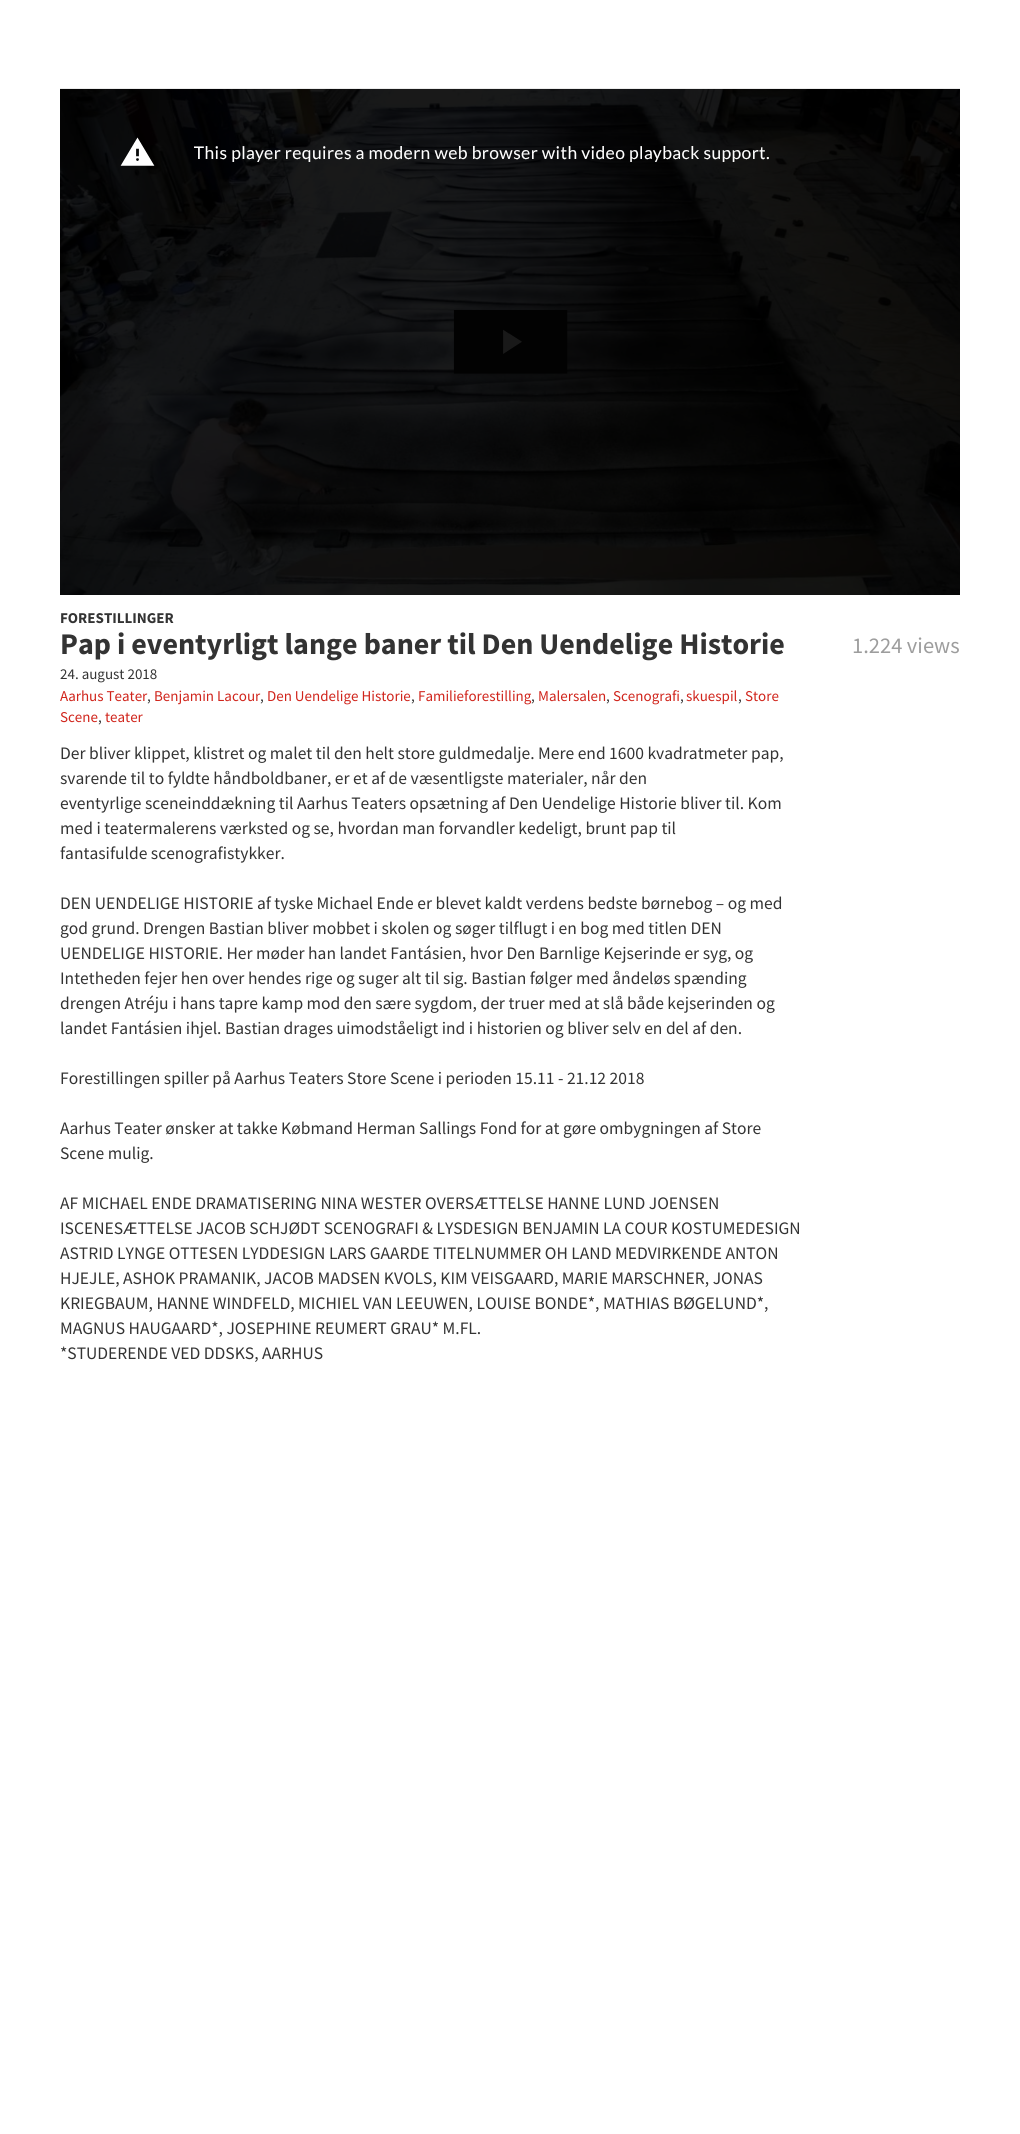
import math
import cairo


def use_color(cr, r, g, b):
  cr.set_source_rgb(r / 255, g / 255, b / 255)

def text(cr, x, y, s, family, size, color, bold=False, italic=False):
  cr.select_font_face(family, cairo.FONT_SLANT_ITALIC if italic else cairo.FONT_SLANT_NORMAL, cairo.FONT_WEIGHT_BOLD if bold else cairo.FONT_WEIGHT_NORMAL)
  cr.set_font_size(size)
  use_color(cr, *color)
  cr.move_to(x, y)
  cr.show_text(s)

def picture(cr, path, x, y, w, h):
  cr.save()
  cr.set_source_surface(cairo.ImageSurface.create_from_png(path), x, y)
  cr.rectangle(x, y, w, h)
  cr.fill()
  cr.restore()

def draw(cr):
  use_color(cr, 255, 255, 255)
  cr.paint()
  picture(cr, "img_01.png", 60, 88, 900, 507)
  text(cr, 60, 623, "FORESTILLINGER", "Source Sans Pro", 15, (51, 51, 51), bold=True)
  text(cr, 60, 654, "Pap i eventyrligt lange baner til Den Uendelige Historie", "Source Sans Pro", 30, (51, 51, 51), bold=True)
  text(cr, 852, 653, "1.224 views", "Source Sans Pro", 22.5, (157, 157, 157))
  text(cr, 60, 679, "24. august 2018", "Source Sans Pro", 15, (51, 51, 51))
  text(cr, 60, 701, "Aarhus Teater", "Source Sans Pro", 15, (208, 36, 27))
  text(cr, 147, 701, ",", "Source Sans Pro", 15, (51, 51, 51))
  text(cr, 154, 701, "Benjamin Lacour", "Source Sans Pro", 15, (208, 36, 27))
  text(cr, 260, 701, ",", "Source Sans Pro", 15, (51, 51, 51))
  text(cr, 267, 701, "Den Uendelige Historie", "Source Sans Pro", 15, (208, 36, 27))
  text(cr, 411, 701, ",", "Source Sans Pro", 15, (51, 51, 51))
  text(cr, 418, 701, "Familieforestilling", "Source Sans Pro", 15, (208, 36, 27))
  text(cr, 531, 701, ",", "Source Sans Pro", 15, (51, 51, 51))
  text(cr, 538, 701, "Malersalen", "Source Sans Pro", 15, (208, 36, 27))
  text(cr, 606, 701, ",", "Source Sans Pro", 15, (51, 51, 51))
  text(cr, 613, 701, "Scenografi", "Source Sans Pro", 15, (208, 36, 27))
  text(cr, 680, 701, ",", "Source Sans Pro", 15, (51, 51, 51))
  text(cr, 686, 701, "skuespil", "Source Sans Pro", 15, (208, 36, 27))
  text(cr, 738, 701, ",", "Source Sans Pro", 15, (51, 51, 51))
  text(cr, 745, 701, "Store", "Source Sans Pro", 15, (208, 36, 27))
  text(cr, 60, 722, "Scene", "Source Sans Pro", 15, (208, 36, 27))
  text(cr, 98, 722, ",", "Source Sans Pro", 15, (51, 51, 51))
  text(cr, 105, 722, "teater", "Source Sans Pro", 15, (208, 36, 27))
  text(cr, 60, 759, "Der bliver klippet, klistret og malet til den helt store guldmedalje. Mere end 1600 kvadratmeter pap,", "Source Sans Pro", 17.5, (51, 51, 51))
  text(cr, 60, 784, "svarende til to fyldte håndboldbaner, er et af de væsentligste materialer, når den", "Source Sans Pro", 17.5, (51, 51, 51))
  text(cr, 60, 809, "eventyrlige sceneinddækning til Aarhus Teaters opsætning af Den Uendelige Historie bliver til. Kom", "Source Sans Pro", 17.5, (51, 51, 51))
  text(cr, 60, 834, "med i teatermalerens værksted og se, hvordan man forvandler kedeligt, brunt pap til", "Source Sans Pro", 17.5, (51, 51, 51))
  text(cr, 60, 859, "fantasifulde scenografistykker.", "Source Sans Pro", 17.5, (51, 51, 51))
  text(cr, 60, 909, "DEN UENDELIGE HISTORIE af tyske Michael Ende er blevet kaldt verdens bedste børnebog – og med", "Source Sans Pro", 17.5, (51, 51, 51))
  text(cr, 60, 934, "god grund. Drengen Bastian bliver mobbet i skolen og søger tilflugt i en bog med titlen DEN", "Source Sans Pro", 17.5, (51, 51, 51))
  text(cr, 60, 959, "UENDELIGE HISTORIE. Her møder han landet Fantásien, hvor Den Barnlige Kejserinde er syg, og", "Source Sans Pro", 17.5, (51, 51, 51))
  text(cr, 60, 984, "Intetheden fejer hen over hendes rige og suger alt til sig. Bastian følger med åndeløs spænding", "Source Sans Pro", 17.5, (51, 51, 51))
  text(cr, 60, 1009, "drengen Atréju i hans tapre kamp mod den sære sygdom, der truer med at slå både kejserinden og", "Source Sans Pro", 17.5, (51, 51, 51))
  text(cr, 60, 1034, "landet Fantásien ihjel. Bastian drages uimodståeligt ind i historien og bliver selv en del af den.", "Source Sans Pro", 17.5, (51, 51, 51))
  text(cr, 60, 1084, "Forestillingen spiller på Aarhus Teaters Store Scene i perioden 15.11 - 21.12 2018", "Source Sans Pro", 17.5, (51, 51, 51))
  text(cr, 60, 1134, "Aarhus Teater ønsker at takke Købmand Herman Sallings Fond for at gøre ombygningen af Store", "Source Sans Pro", 17.5, (51, 51, 51))
  text(cr, 60, 1159, "Scene mulig.", "Source Sans Pro", 17.5, (51, 51, 51))
  text(cr, 60, 1209, "AF MICHAEL ENDE DRAMATISERING NINA WESTER OVERSÆTTELSE HANNE LUND JOENSEN", "Source Sans Pro", 17.5, (51, 51, 51))
  text(cr, 60, 1234, "ISCENESÆTTELSE JACOB SCHJØDT SCENOGRAFI & LYSDESIGN BENJAMIN LA COUR KOSTUMEDESIGN", "Source Sans Pro", 17.5, (51, 51, 51))
  text(cr, 60, 1259, "ASTRID LYNGE OTTESEN LYDDESIGN LARS GAARDE TITELNUMMER OH LAND MEDVIRKENDE ANTON", "Source Sans Pro", 17.5, (51, 51, 51))
  text(cr, 60, 1284, "HJEJLE, ASHOK PRAMANIK, JACOB MADSEN KVOLS, KIM VEISGAARD, MARIE MARSCHNER, JONAS", "Source Sans Pro", 17.5, (51, 51, 51))
  text(cr, 60, 1309, "KRIEGBAUM, HANNE WINDFELD, MICHIEL VAN LEEUWEN, LOUISE BONDE*, MATHIAS BØGELUND*,", "Source Sans Pro", 17.5, (51, 51, 51))
  text(cr, 60, 1334, "MAGNUS HAUGAARD*, JOSEPHINE REUMERT GRAU* M.FL.", "Source Sans Pro", 17.5, (51, 51, 51))
  text(cr, 60, 1359, "*STUDERENDE VED DDSKS, AARHUS", "Source Sans Pro", 17.5, (51, 51, 51))


surface = cairo.ImageSurface(cairo.FORMAT_RGB24, 1020, 2134)
cr = cairo.Context(surface)
options = cairo.FontOptions()
options.set_hint_metrics(cairo.HINT_METRICS_OFF)
options.set_hint_style(cairo.HINT_STYLE_NONE)
cr.set_font_options(options)
cr.set_miter_limit(4)
draw(cr)
surface.write_to_png("out.png")
